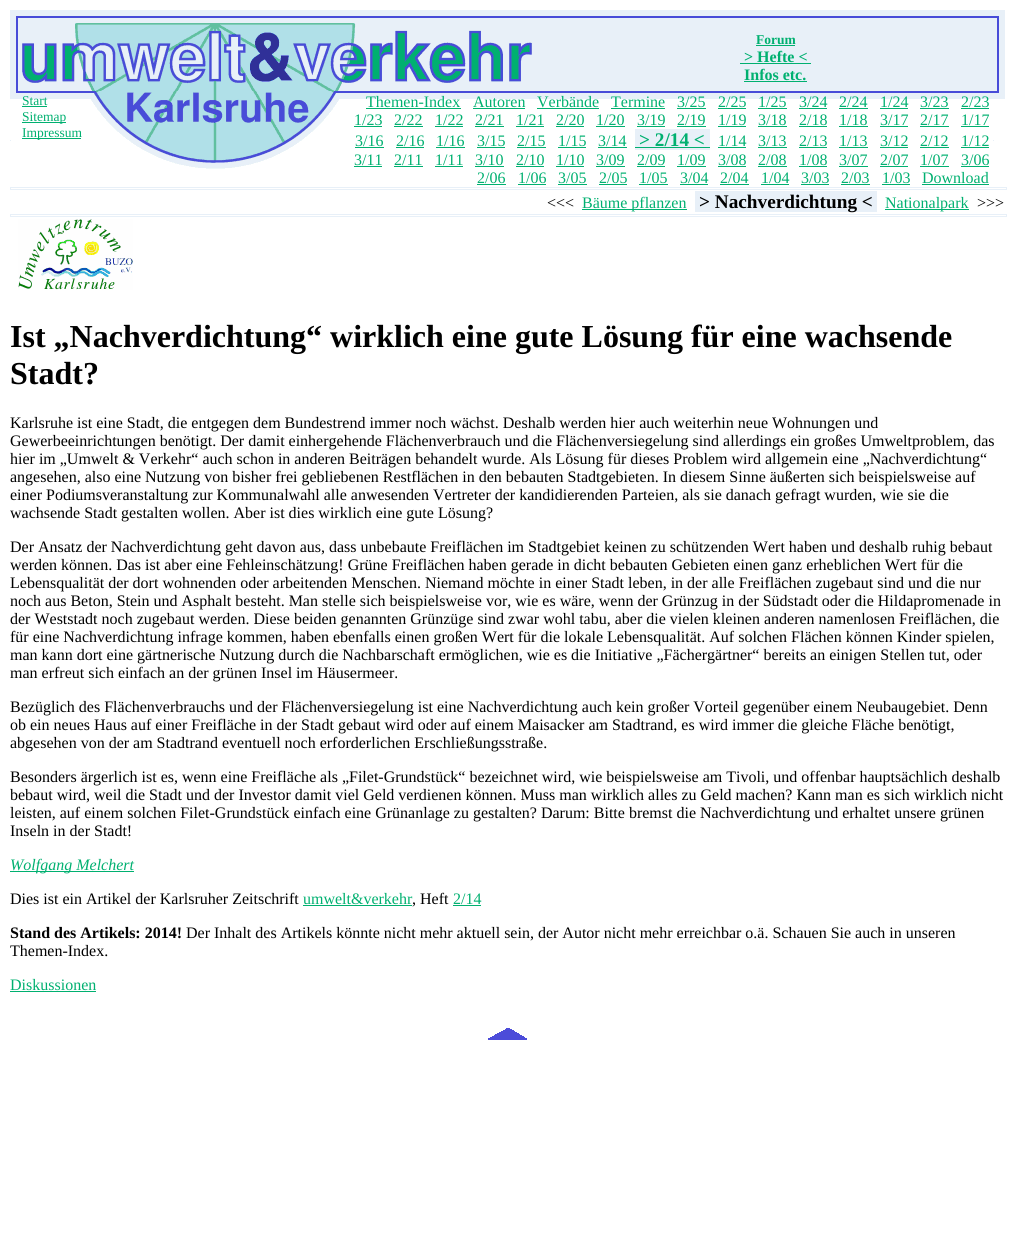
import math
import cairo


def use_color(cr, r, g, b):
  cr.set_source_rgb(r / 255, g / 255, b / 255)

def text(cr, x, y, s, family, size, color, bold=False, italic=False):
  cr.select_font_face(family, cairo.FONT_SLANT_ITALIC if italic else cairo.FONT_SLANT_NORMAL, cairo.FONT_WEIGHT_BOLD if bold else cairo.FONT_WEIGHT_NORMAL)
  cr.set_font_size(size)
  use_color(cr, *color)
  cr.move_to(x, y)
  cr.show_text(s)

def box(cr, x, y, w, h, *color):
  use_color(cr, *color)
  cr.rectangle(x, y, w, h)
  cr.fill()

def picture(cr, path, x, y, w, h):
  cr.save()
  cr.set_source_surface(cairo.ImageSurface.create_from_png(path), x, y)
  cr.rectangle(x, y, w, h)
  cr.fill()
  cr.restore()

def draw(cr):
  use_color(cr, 255, 255, 255)
  cr.paint()
  box(cr, 10, 10, 995, 6, 232, 240, 248)
  box(cr, 10, 16, 6, 77, 232, 240, 248)
  box(cr, 16, 16, 983, 2, 72, 76, 216)
  box(cr, 999, 16, 6, 77, 232, 240, 248)
  box(cr, 16, 18, 2, 75, 72, 76, 216)
  box(cr, 18, 18, 979, 4, 232, 240, 248)
  box(cr, 997, 18, 2, 73, 72, 76, 216)
  box(cr, 18, 22, 979, 69, 232, 240, 248)
  picture(cr, "img_01.png", 22, 23, 68, 64)
  picture(cr, "img_02.png", 90, 23, 249, 68)
  picture(cr, "img_03.png", 339, 23, 193, 66)
  box(cr, 756, 45, 39, 1, 0, 176, 112)
  box(cr, 740, 63, 71, 1, 0, 176, 112)
  box(cr, 744, 81, 63, 1, 0, 176, 112)
  box(cr, 18, 91, 981, 2, 72, 76, 216)
  picture(cr, "img_04.png", 94, 91, 241, 2)
  box(cr, 10, 93, 81, 6, 232, 240, 248)
  box(cr, 10, 140, 1, 1, 232, 240, 248)
  picture(cr, "img_05.png", 91, 93, 248, 76)
  box(cr, 339, 93, 666, 6, 232, 240, 248)
  box(cr, 366, 108, 95, 1, 0, 176, 112)
  box(cr, 473, 108, 52, 1, 0, 176, 112)
  box(cr, 537, 108, 62, 1, 0, 176, 112)
  box(cr, 611, 108, 54, 1, 0, 176, 112)
  box(cr, 677, 108, 29, 1, 0, 176, 112)
  box(cr, 718, 108, 28, 1, 0, 176, 112)
  box(cr, 758, 108, 29, 1, 0, 176, 112)
  box(cr, 799, 108, 28, 1, 0, 176, 112)
  box(cr, 839, 108, 29, 1, 0, 176, 112)
  box(cr, 880, 108, 28, 1, 0, 176, 112)
  box(cr, 920, 108, 29, 1, 0, 176, 112)
  box(cr, 961, 108, 28, 1, 0, 176, 112)
  box(cr, 354, 126, 28, 1, 0, 176, 112)
  box(cr, 394, 126, 29, 1, 0, 176, 112)
  box(cr, 435, 126, 28, 1, 0, 176, 112)
  box(cr, 475, 126, 29, 1, 0, 176, 112)
  box(cr, 516, 126, 28, 1, 0, 176, 112)
  box(cr, 556, 126, 28, 1, 0, 176, 112)
  box(cr, 596, 126, 29, 1, 0, 176, 112)
  box(cr, 637, 126, 28, 1, 0, 176, 112)
  box(cr, 677, 126, 29, 1, 0, 176, 112)
  box(cr, 718, 126, 28, 1, 0, 176, 112)
  box(cr, 758, 126, 29, 1, 0, 176, 112)
  box(cr, 799, 126, 28, 1, 0, 176, 112)
  box(cr, 839, 126, 29, 1, 0, 176, 112)
  box(cr, 880, 126, 28, 1, 0, 176, 112)
  box(cr, 920, 126, 29, 1, 0, 176, 112)
  box(cr, 961, 126, 28, 1, 0, 176, 112)
  box(cr, 355, 147, 29, 1, 0, 176, 112)
  box(cr, 396, 147, 28, 1, 0, 176, 112)
  box(cr, 436, 147, 29, 1, 0, 176, 112)
  box(cr, 477, 147, 28, 1, 0, 176, 112)
  box(cr, 517, 147, 29, 1, 0, 176, 112)
  box(cr, 558, 147, 28, 1, 0, 176, 112)
  box(cr, 598, 147, 29, 1, 0, 176, 112)
  box(cr, 635, 129, 75, 21, 232, 240, 248)
  box(cr, 635, 147, 75, 1, 0, 176, 112)
  box(cr, 718, 147, 28, 1, 0, 176, 112)
  box(cr, 758, 147, 29, 1, 0, 176, 112)
  box(cr, 799, 147, 28, 1, 0, 176, 112)
  box(cr, 839, 147, 29, 1, 0, 176, 112)
  box(cr, 880, 147, 28, 1, 0, 176, 112)
  box(cr, 920, 147, 29, 1, 0, 176, 112)
  box(cr, 961, 147, 28, 1, 0, 176, 112)
  box(cr, 354, 166, 28, 1, 0, 176, 112)
  box(cr, 394, 166, 29, 1, 0, 176, 112)
  box(cr, 435, 166, 28, 1, 0, 176, 112)
  box(cr, 475, 166, 29, 1, 0, 176, 112)
  box(cr, 516, 166, 28, 1, 0, 176, 112)
  box(cr, 556, 166, 28, 1, 0, 176, 112)
  box(cr, 596, 166, 29, 1, 0, 176, 112)
  box(cr, 637, 166, 28, 1, 0, 176, 112)
  box(cr, 677, 166, 29, 1, 0, 176, 112)
  box(cr, 718, 166, 28, 1, 0, 176, 112)
  box(cr, 758, 166, 29, 1, 0, 176, 112)
  box(cr, 799, 166, 28, 1, 0, 176, 112)
  box(cr, 839, 166, 29, 1, 0, 176, 112)
  box(cr, 880, 166, 28, 1, 0, 176, 112)
  box(cr, 920, 166, 29, 1, 0, 176, 112)
  box(cr, 961, 166, 28, 1, 0, 176, 112)
  box(cr, 477, 184, 29, 1, 0, 176, 112)
  box(cr, 518, 184, 28, 1, 0, 176, 112)
  box(cr, 558, 184, 29, 1, 0, 176, 112)
  box(cr, 599, 184, 28, 1, 0, 176, 112)
  box(cr, 639, 184, 29, 1, 0, 176, 112)
  box(cr, 680, 184, 28, 1, 0, 176, 112)
  box(cr, 720, 184, 29, 1, 0, 176, 112)
  box(cr, 761, 184, 28, 1, 0, 176, 112)
  box(cr, 801, 184, 28, 1, 0, 176, 112)
  box(cr, 841, 184, 29, 1, 0, 176, 112)
  box(cr, 882, 184, 28, 1, 0, 176, 112)
  box(cr, 922, 184, 67, 1, 0, 176, 112)
  box(cr, 22, 106, 25, 1, 0, 176, 112)
  box(cr, 22, 122, 44, 1, 0, 176, 112)
  box(cr, 22, 138, 59, 1, 0, 176, 112)
  box(cr, 993, 140, 1, 1, 232, 240, 248)
  cr.rectangle(10.5, 187.5, 996, 2)
  cr.set_line_width(1)
  cr.stroke()
  box(cr, 582, 209, 105, 1, 0, 176, 112)
  box(cr, 695, 191, 182, 21, 232, 240, 248)
  box(cr, 885, 209, 84, 1, 0, 176, 112)
  cr.rectangle(10.5, 214.5, 996, 2)
  use_color(cr, 232, 240, 248)
  cr.stroke()
  picture(cr, "img_06.png", 18, 219, 115, 71)
  box(cr, 10, 871, 124, 1, 0, 176, 112)
  box(cr, 303, 905, 109, 1, 0, 176, 112)
  box(cr, 453, 905, 28, 1, 0, 176, 112)
  box(cr, 10, 991, 86, 1, 0, 176, 112)
  picture(cr, "img_07.png", 488, 1028, 39, 12)
  text(cr, 756, 44, "Forum", "Liberation Serif", 13.5, (0, 176, 112), bold=True)
  text(cr, 744, 62, "> Hefte <", "Liberation Serif", 16, (0, 176, 112), bold=True)
  text(cr, 744, 80, "Infos etc.", "Liberation Serif", 16, (0, 176, 112), bold=True)
  text(cr, 366, 107, "Themen-Index", "Liberation Serif", 16, (0, 176, 112))
  text(cr, 473, 107, "Autoren", "Liberation Serif", 16, (0, 176, 112))
  text(cr, 537, 107, "Verbände", "Liberation Serif", 16, (0, 176, 112))
  text(cr, 611, 107, "Termine", "Liberation Serif", 16, (0, 176, 112))
  text(cr, 677, 107, "3/25", "Liberation Serif", 16, (0, 176, 112))
  text(cr, 718, 107, "2/25", "Liberation Serif", 16, (0, 176, 112))
  text(cr, 758, 107, "1/25", "Liberation Serif", 16, (0, 176, 112))
  text(cr, 799, 107, "3/24", "Liberation Serif", 16, (0, 176, 112))
  text(cr, 839, 107, "2/24", "Liberation Serif", 16, (0, 176, 112))
  text(cr, 880, 107, "1/24", "Liberation Serif", 16, (0, 176, 112))
  text(cr, 920, 107, "3/23", "Liberation Serif", 16, (0, 176, 112))
  text(cr, 961, 107, "2/23", "Liberation Serif", 16, (0, 176, 112))
  text(cr, 354, 125, "1/23", "Liberation Serif", 16, (0, 176, 112))
  text(cr, 394, 125, "2/22", "Liberation Serif", 16, (0, 176, 112))
  text(cr, 435, 125, "1/22", "Liberation Serif", 16, (0, 176, 112))
  text(cr, 475, 125, "2/21", "Liberation Serif", 16, (0, 176, 112))
  text(cr, 516, 125, "1/21", "Liberation Serif", 16, (0, 176, 112))
  text(cr, 556, 125, "2/20", "Liberation Serif", 16, (0, 176, 112))
  text(cr, 596, 125, "1/20", "Liberation Serif", 16, (0, 176, 112))
  text(cr, 637, 125, "3/19", "Liberation Serif", 16, (0, 176, 112))
  text(cr, 677, 125, "2/19", "Liberation Serif", 16, (0, 176, 112))
  text(cr, 718, 125, "1/19", "Liberation Serif", 16, (0, 176, 112))
  text(cr, 758, 125, "3/18", "Liberation Serif", 16, (0, 176, 112))
  text(cr, 799, 125, "2/18", "Liberation Serif", 16, (0, 176, 112))
  text(cr, 839, 125, "1/18", "Liberation Serif", 16, (0, 176, 112))
  text(cr, 880, 125, "3/17", "Liberation Serif", 16, (0, 176, 112))
  text(cr, 920, 125, "2/17", "Liberation Serif", 16, (0, 176, 112))
  text(cr, 961, 125, "1/17", "Liberation Serif", 16, (0, 176, 112))
  text(cr, 355, 146, "3/16", "Liberation Serif", 16, (0, 176, 112))
  text(cr, 396, 146, "2/16", "Liberation Serif", 16, (0, 176, 112))
  text(cr, 436, 146, "1/16", "Liberation Serif", 16, (0, 176, 112))
  text(cr, 477, 146, "3/15", "Liberation Serif", 16, (0, 176, 112))
  text(cr, 517, 146, "2/15", "Liberation Serif", 16, (0, 176, 112))
  text(cr, 558, 146, "1/15", "Liberation Serif", 16, (0, 176, 112))
  text(cr, 598, 146, "3/14", "Liberation Serif", 16, (0, 176, 112))
  text(cr, 639, 146, "> 2/14 <", "Liberation Serif", 19.25, (0, 176, 112), bold=True)
  text(cr, 718, 146, "1/14", "Liberation Serif", 16, (0, 176, 112))
  text(cr, 758, 146, "3/13", "Liberation Serif", 16, (0, 176, 112))
  text(cr, 799, 146, "2/13", "Liberation Serif", 16, (0, 176, 112))
  text(cr, 839, 146, "1/13", "Liberation Serif", 16, (0, 176, 112))
  text(cr, 880, 146, "3/12", "Liberation Serif", 16, (0, 176, 112))
  text(cr, 920, 146, "2/12", "Liberation Serif", 16, (0, 176, 112))
  text(cr, 961, 146, "1/12", "Liberation Serif", 16, (0, 176, 112))
  text(cr, 354, 165, "3/11", "Liberation Serif", 16, (0, 176, 112))
  text(cr, 394, 165, "2/11", "Liberation Serif", 16, (0, 176, 112))
  text(cr, 435, 165, "1/11", "Liberation Serif", 16, (0, 176, 112))
  text(cr, 475, 165, "3/10", "Liberation Serif", 16, (0, 176, 112))
  text(cr, 516, 165, "2/10", "Liberation Serif", 16, (0, 176, 112))
  text(cr, 556, 165, "1/10", "Liberation Serif", 16, (0, 176, 112))
  text(cr, 596, 165, "3/09", "Liberation Serif", 16, (0, 176, 112))
  text(cr, 637, 165, "2/09", "Liberation Serif", 16, (0, 176, 112))
  text(cr, 677, 165, "1/09", "Liberation Serif", 16, (0, 176, 112))
  text(cr, 718, 165, "3/08", "Liberation Serif", 16, (0, 176, 112))
  text(cr, 758, 165, "2/08", "Liberation Serif", 16, (0, 176, 112))
  text(cr, 799, 165, "1/08", "Liberation Serif", 16, (0, 176, 112))
  text(cr, 839, 165, "3/07", "Liberation Serif", 16, (0, 176, 112))
  text(cr, 880, 165, "2/07", "Liberation Serif", 16, (0, 176, 112))
  text(cr, 920, 165, "1/07", "Liberation Serif", 16, (0, 176, 112))
  text(cr, 961, 165, "3/06", "Liberation Serif", 16, (0, 176, 112))
  text(cr, 477, 183, "2/06", "Liberation Serif", 16, (0, 176, 112))
  text(cr, 518, 183, "1/06", "Liberation Serif", 16, (0, 176, 112))
  text(cr, 558, 183, "3/05", "Liberation Serif", 16, (0, 176, 112))
  text(cr, 599, 183, "2/05", "Liberation Serif", 16, (0, 176, 112))
  text(cr, 639, 183, "1/05", "Liberation Serif", 16, (0, 176, 112))
  text(cr, 680, 183, "3/04", "Liberation Serif", 16, (0, 176, 112))
  text(cr, 720, 183, "2/04", "Liberation Serif", 16, (0, 176, 112))
  text(cr, 761, 183, "1/04", "Liberation Serif", 16, (0, 176, 112))
  text(cr, 801, 183, "3/03", "Liberation Serif", 16, (0, 176, 112))
  text(cr, 841, 183, "2/03", "Liberation Serif", 16, (0, 176, 112))
  text(cr, 882, 183, "1/03", "Liberation Serif", 16, (0, 176, 112))
  text(cr, 922, 183, "Download", "Liberation Serif", 16, (0, 176, 112))
  text(cr, 22, 105, "Start", "Liberation Serif", 13.5, (0, 176, 112))
  text(cr, 22, 121, "Sitemap", "Liberation Serif", 13.5, (0, 176, 112))
  text(cr, 22, 137, "Impressum", "Liberation Serif", 13.5, (0, 176, 112))
  text(cr, 547, 208, "<<<", "Liberation Serif", 16, (0, 0, 0))
  text(cr, 582, 208, "Bäume pflanzen", "Liberation Serif", 16, (0, 176, 112))
  text(cr, 699, 208, "> Nachverdichtung <", "Liberation Serif", 19.25, (0, 0, 0), bold=True)
  text(cr, 885, 208, "Nationalpark", "Liberation Serif", 16, (0, 176, 112))
  text(cr, 977, 208, ">>>", "Liberation Serif", 16, (0, 0, 0))
  text(cr, 10, 347, "Ist „Nachverdichtung“ wirklich eine gute Lösung für eine wachsende", "Liberation Serif", 32, (0, 0, 0), bold=True)
  text(cr, 10, 384, "Stadt?", "Liberation Serif", 32, (0, 0, 0), bold=True)
  text(cr, 10, 428, "Karlsruhe ist eine Stadt, die entgegen dem Bundestrend immer noch wächst. Deshalb werden hier auch weiterhin neue Wohnungen und", "Liberation Serif", 16, (0, 0, 0))
  text(cr, 10, 446, "Gewerbeeinrichtungen benötigt. Der damit einhergehende Flächenverbrauch und die Flächenversiegelung sind allerdings ein großes Umweltproblem, das", "Liberation Serif", 16, (0, 0, 0))
  text(cr, 10, 464, "hier im „Umwelt & Verkehr“ auch schon in anderen Beiträgen behandelt wurde. Als Lösung für dieses Problem wird allgemein eine „Nachverdichtung“", "Liberation Serif", 16, (0, 0, 0))
  text(cr, 10, 482, "angesehen, also eine Nutzung von bisher frei gebliebenen Restflächen in den bebauten Stadtgebieten. In diesem Sinne äußerten sich beispielsweise auf", "Liberation Serif", 16, (0, 0, 0))
  text(cr, 10, 500, "einer Podiumsveranstaltung zur Kommunalwahl alle anwesenden Vertreter der kandidierenden Parteien, als sie danach gefragt wurden, wie sie die", "Liberation Serif", 16, (0, 0, 0))
  text(cr, 10, 518, "wachsende Stadt gestalten wollen. Aber ist dies wirklich eine gute Lösung?", "Liberation Serif", 16, (0, 0, 0))
  text(cr, 10, 552, "Der Ansatz der Nachverdichtung geht davon aus, dass unbebaute Freiflächen im Stadtgebiet keinen zu schützenden Wert haben und deshalb ruhig bebaut", "Liberation Serif", 16, (0, 0, 0))
  text(cr, 10, 570, "werden können. Das ist aber eine Fehleinschätzung! Grüne Freiflächen haben gerade in dicht bebauten Gebieten einen ganz erheblichen Wert für die", "Liberation Serif", 16, (0, 0, 0))
  text(cr, 10, 588, "Lebensqualität der dort wohnenden oder arbeitenden Menschen. Niemand möchte in einer Stadt leben, in der alle Freiflächen zugebaut sind und die nur", "Liberation Serif", 16, (0, 0, 0))
  text(cr, 10, 606, "noch aus Beton, Stein und Asphalt besteht. Man stelle sich beispielsweise vor, wie es wäre, wenn der Grünzug in der Südstadt oder die Hildapromenade in", "Liberation Serif", 16, (0, 0, 0))
  text(cr, 10, 624, "der Weststadt noch zugebaut werden. Diese beiden genannten Grünzüge sind zwar wohl tabu, aber die vielen kleinen anderen namenlosen Freiflächen, die", "Liberation Serif", 16, (0, 0, 0))
  text(cr, 10, 642, "für eine Nachverdichtung infrage kommen, haben ebenfalls einen großen Wert für die lokale Lebensqualität. Auf solchen Flächen können Kinder spielen,", "Liberation Serif", 16, (0, 0, 0))
  text(cr, 10, 660, "man kann dort eine gärtnerische Nutzung durch die Nachbarschaft ermöglichen, wie es die Initiative „Fächergärtner“ bereits an einigen Stellen tut, oder", "Liberation Serif", 16, (0, 0, 0))
  text(cr, 10, 678, "man erfreut sich einfach an der grünen Insel im Häusermeer.", "Liberation Serif", 16, (0, 0, 0))
  text(cr, 10, 712, "Bezüglich des Flächenverbrauchs und der Flächenversiegelung ist eine Nachverdichtung auch kein großer Vorteil gegenüber einem Neubaugebiet. Denn", "Liberation Serif", 16, (0, 0, 0))
  text(cr, 10, 730, "ob ein neues Haus auf einer Freifläche in der Stadt gebaut wird oder auf einem Maisacker am Stadtrand, es wird immer die gleiche Fläche benötigt,", "Liberation Serif", 16, (0, 0, 0))
  text(cr, 10, 748, "abgesehen von der am Stadtrand eventuell noch erforderlichen Erschließungsstraße.", "Liberation Serif", 16, (0, 0, 0))
  text(cr, 10, 782, "Besonders ärgerlich ist es, wenn eine Freifläche als „Filet-Grundstück“ bezeichnet wird, wie beispielsweise am Tivoli, und offenbar hauptsächlich deshalb", "Liberation Serif", 16, (0, 0, 0))
  text(cr, 10, 800, "bebaut wird, weil die Stadt und der Investor damit viel Geld verdienen können. Muss man wirklich alles zu Geld machen? Kann man es sich wirklich nicht", "Liberation Serif", 16, (0, 0, 0))
  text(cr, 10, 818, "leisten, auf einem solchen Filet-Grundstück einfach eine Grünanlage zu gestalten? Darum: Bitte bremst die Nachverdichtung und erhaltet unsere grünen", "Liberation Serif", 16, (0, 0, 0))
  text(cr, 10, 836, "Inseln in der Stadt!", "Liberation Serif", 16, (0, 0, 0))
  text(cr, 10, 870, "Wolfgang Melchert", "Liberation Serif", 16, (0, 176, 112), italic=True)
  text(cr, 10, 904, "Dies ist ein Artikel der Karlsruher Zeitschrift", "Liberation Serif", 16, (0, 0, 0))
  text(cr, 303, 904, "umwelt&verkehr", "Liberation Serif", 16, (0, 176, 112))
  text(cr, 412, 904, ", Heft", "Liberation Serif", 16, (0, 0, 0))
  text(cr, 453, 904, "2/14", "Liberation Serif", 16, (0, 176, 112))
  text(cr, 10, 938, "Stand des Artikels: 2014!", "Liberation Serif", 16, (0, 0, 0), bold=True)
  text(cr, 186, 938, "Der Inhalt des Artikels könnte nicht mehr aktuell sein, der Autor nicht mehr erreichbar o.ä. Schauen Sie auch in unseren", "Liberation Serif", 16, (0, 0, 0))
  text(cr, 10, 956, "Themen-Index.", "Liberation Serif", 16, (0, 0, 0))
  text(cr, 10, 990, "Diskussionen", "Liberation Serif", 16, (0, 176, 112))


surface = cairo.ImageSurface(cairo.FORMAT_RGB24, 1015, 1258)
cr = cairo.Context(surface)
options = cairo.FontOptions()
options.set_hint_metrics(cairo.HINT_METRICS_OFF)
options.set_hint_style(cairo.HINT_STYLE_NONE)
cr.set_font_options(options)
cr.set_miter_limit(4)
draw(cr)
surface.write_to_png("out.png")
